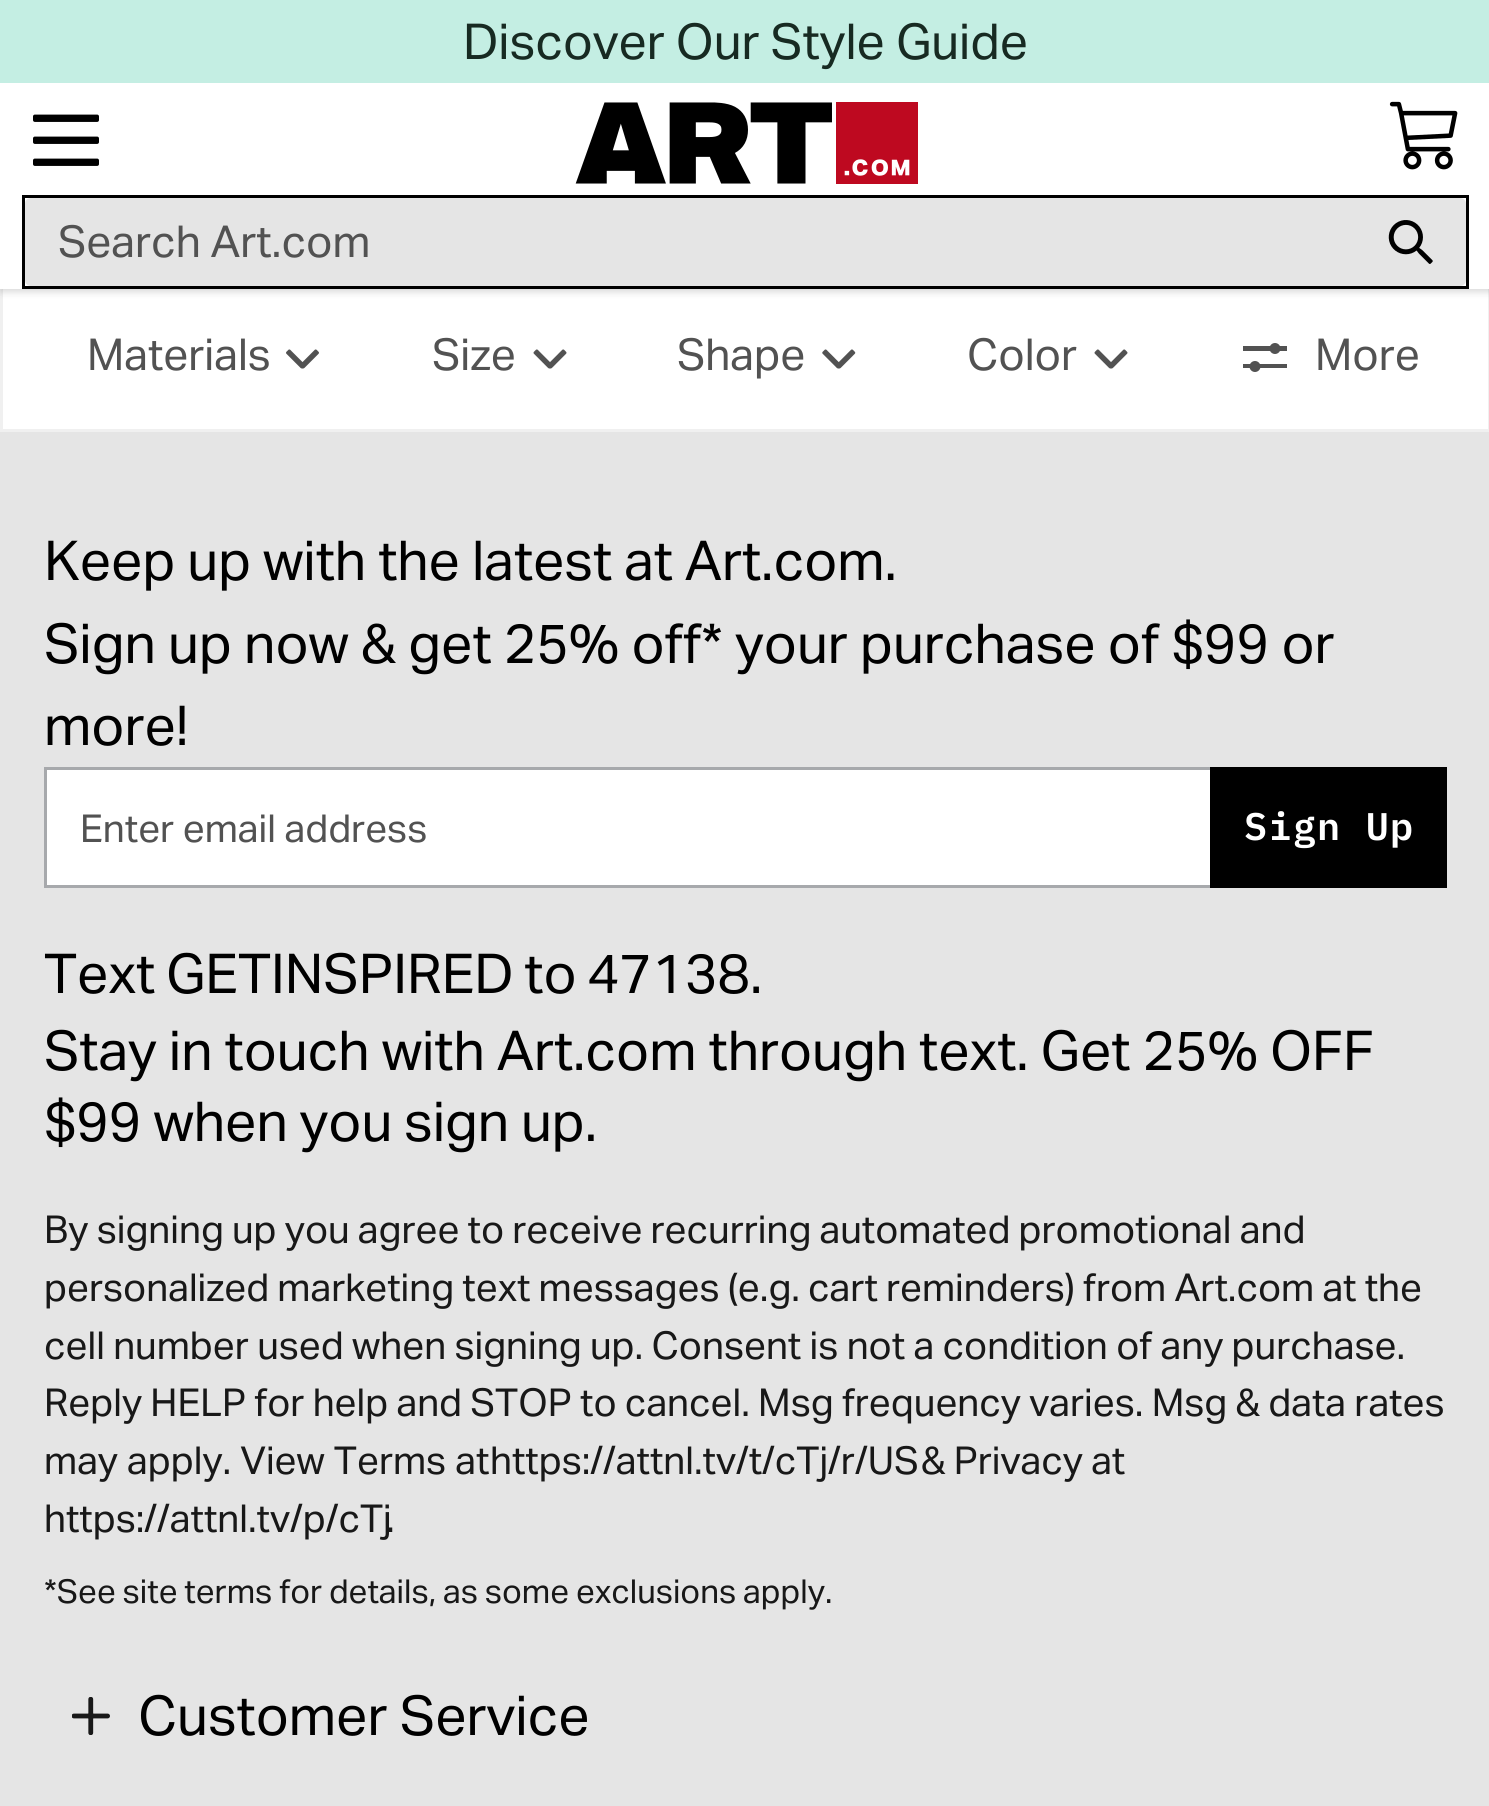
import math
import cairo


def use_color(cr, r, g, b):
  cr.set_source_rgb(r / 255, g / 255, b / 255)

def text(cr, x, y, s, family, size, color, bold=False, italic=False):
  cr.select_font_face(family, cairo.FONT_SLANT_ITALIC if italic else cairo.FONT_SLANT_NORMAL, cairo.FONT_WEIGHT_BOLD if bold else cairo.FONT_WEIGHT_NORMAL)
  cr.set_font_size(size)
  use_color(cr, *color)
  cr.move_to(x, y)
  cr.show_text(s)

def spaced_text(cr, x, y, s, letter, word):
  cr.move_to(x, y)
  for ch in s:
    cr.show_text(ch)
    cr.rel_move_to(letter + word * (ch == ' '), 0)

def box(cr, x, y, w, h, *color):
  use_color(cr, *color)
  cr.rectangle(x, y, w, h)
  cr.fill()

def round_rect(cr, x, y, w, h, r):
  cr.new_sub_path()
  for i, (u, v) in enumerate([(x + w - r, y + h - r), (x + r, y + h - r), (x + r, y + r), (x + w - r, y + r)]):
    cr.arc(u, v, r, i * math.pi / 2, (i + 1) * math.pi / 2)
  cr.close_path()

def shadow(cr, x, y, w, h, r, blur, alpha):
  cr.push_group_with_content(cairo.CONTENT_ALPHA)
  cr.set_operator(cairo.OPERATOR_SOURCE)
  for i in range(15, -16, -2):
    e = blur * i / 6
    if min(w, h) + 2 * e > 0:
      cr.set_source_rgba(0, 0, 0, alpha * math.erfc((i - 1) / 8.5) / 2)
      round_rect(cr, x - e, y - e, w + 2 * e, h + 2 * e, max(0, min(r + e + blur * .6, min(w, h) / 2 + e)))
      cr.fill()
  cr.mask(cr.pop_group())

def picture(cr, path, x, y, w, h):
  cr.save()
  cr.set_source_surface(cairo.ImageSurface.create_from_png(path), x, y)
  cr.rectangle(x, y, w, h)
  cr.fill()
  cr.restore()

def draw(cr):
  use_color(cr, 229, 229, 229)
  cr.paint()
  box(cr, 3, 289, 1485, 140, 255, 255, 255)
  cr.rectangle(1.5, 282.5, 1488, 148)
  use_color(cr, 240, 240, 240)
  cr.set_line_width(3)
  cr.stroke()
  use_color(cr, 0, 0, 0)
  shadow(cr, 0, 85, 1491, 207, 0, 3, 0.06)
  shadow(cr, 0, 85, 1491, 207, 0, 4, 0.1)
  box(cr, 0, 0, 1489, 83, 196, 238, 227)
  box(cr, 0, 83, 1489, 206, 255, 255, 255)
  picture(cr, "img_01.png", 33, 114, 66, 52)
  picture(cr, "img_02.png", 575, 102, 343, 82)
  picture(cr, "img_03.png", 1389, 101, 69, 69)
  cr.rectangle(23.5, 196.5, 1444, 91)
  use_color(cr, 0, 0, 0)
  cr.stroke()
  use_color(cr, 229, 229, 229)
  cr.new_path()
  cr.move_to(31, 198)
  cr.line_to(1353, 198)
  cr.line_to(1353, 286)
  cr.line_to(31, 286)
  cr.curve_to(27.5, 286, 25, 283.5, 25, 280)
  cr.line_to(25, 204)
  cr.curve_to(25, 200.5, 27.5, 198, 31, 198)
  cr.close_path()
  cr.fill()
  cr.new_path()
  cr.move_to(1353, 198)
  cr.line_to(1460, 198)
  cr.curve_to(1463.5, 198, 1466, 200.5, 1466, 204)
  cr.line_to(1466, 280)
  cr.curve_to(1466, 283.5, 1463.5, 286, 1460, 286)
  cr.line_to(1353, 286)
  cr.close_path()
  cr.fill()
  picture(cr, "img_04.png", 1388, 220, 45, 44)
  picture(cr, "img_05.png", 286, 349, 33, 20)
  picture(cr, "img_06.png", 533, 349, 34, 20)
  picture(cr, "img_07.png", 822, 349, 34, 20)
  picture(cr, "img_06.png", 1094, 349, 34, 20)
  box(cr, 1243, 364, 44, 4, 82, 82, 82)
  box(cr, 1243, 346, 44, 5, 82, 82, 82)
  cr.arc(1275, 348.5, 5.5, 0, 2 * math.pi)
  cr.fill()
  cr.arc(1255, 366.5, 5.5, 0, 2 * math.pi)
  cr.fill()
  box(cr, 47, 770, 1163, 115, 255, 255, 255)
  cr.rectangle(45.5, 768.5, 1400, 118)
  use_color(cr, 167, 169, 172)
  cr.stroke()
  box(cr, 1210, 767, 237, 121, 0, 0, 0)
  picture(cr, "img_08.png", 72, 1697, 38, 38)
  text(cr, 463, 59, "Discover Our Style Guide", "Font", 49.5, (23, 42, 34))
  text(cr, 58, 257, "Search Art.com", "Font", 44, (82, 82, 82))
  text(cr, 87, 370, "Materials", "Font", 44, (82, 82, 82))
  text(cr, 432, 370, "Size", "Font", 44, (82, 82, 82))
  text(cr, 677, 370, "Shape", "Font", 44, (82, 82, 82))
  text(cr, 967, 370, "Color", "Font", 44, (82, 82, 82))
  text(cr, 1315, 370, "More", "Font", 44, (82, 82, 82))
  cr.set_font_size(55)
  use_color(cr, 0, 0, 0)
  spaced_text(cr, 44, 580, "Keep up with the latest at Art.com.", 0, -0.25)
  text(cr, 44, 663, "Sign up now & get 25% off* your purchase of $99 or", "Font", 55, (0, 0, 0))
  text(cr, 44, 745, "more!", "Font", 55, (0, 0, 0))
  text(cr, 80, 842, "Enter email address", "Font", 38.5, (82, 82, 82))
  cr.select_font_face("IBM Plex Mono SemiBold")
  use_color(cr, 255, 255, 255)
  spaced_text(cr, 1244, 840, "Sign Up", 1.25, 0)
  cr.select_font_face("Font")
  cr.set_font_size(55)
  use_color(cr, 0, 0, 0)
  spaced_text(cr, 44, 993, "Text GETINSPIRED to 47138.", 0, -1.5)
  spaced_text(cr, 44, 1070, "Stay in touch with Art.com through text. Get 25% OFF", 0, -0.25)
  spaced_text(cr, 44, 1141, "$99 when you sign up.", 0, -0.5)
  cr.set_font_size(38.5)
  use_color(cr, 24, 24, 24)
  spaced_text(cr, 44, 1243, "By signing up you agree to receive recurring automated promotional and", 0, -0.4)
  spaced_text(cr, 44, 1301, "personalized marketing text messages (e.g. cart reminders) from Art.com at the", 0, -0.4)
  spaced_text(cr, 44, 1359, "cell number used when signing up. Consent is not a condition of any purchase.", 0, -0.25)
  spaced_text(cr, 44, 1416, "Reply HELP for help and STOP to cancel. Msg frequency varies. Msg & data rates", 0, -0.3)
  spaced_text(cr, 44, 1474, "may apply. View Terms at", 0, 0.5)
  text(cr, 490, 1474, "https://attnl.tv/t/cTj/r/US", "Font", 38.5, (24, 24, 24))
  spaced_text(cr, 921, 1474, "& Privacy at", 0, -0.4)
  text(cr, 44, 1532, "https://attnl.tv/p/cTj", "Font", 38.5, (24, 24, 24))
  text(cr, 386, 1532, ".", "Font", 38.5, (24, 24, 24))
  cr.set_font_size(33)
  spaced_text(cr, 44, 1603, "*See site terms for details, as some exclusions apply.", 0, -0.5)
  text(cr, 138, 1735, "Customer Service", "Font", 55, (0, 0, 0))


surface = cairo.ImageSurface(cairo.FORMAT_RGB24, 1489, 1806)
cr = cairo.Context(surface)
options = cairo.FontOptions()
options.set_hint_metrics(cairo.HINT_METRICS_OFF)
options.set_hint_style(cairo.HINT_STYLE_NONE)
cr.set_font_options(options)
cr.set_miter_limit(4)
draw(cr)
surface.write_to_png("out.png")
